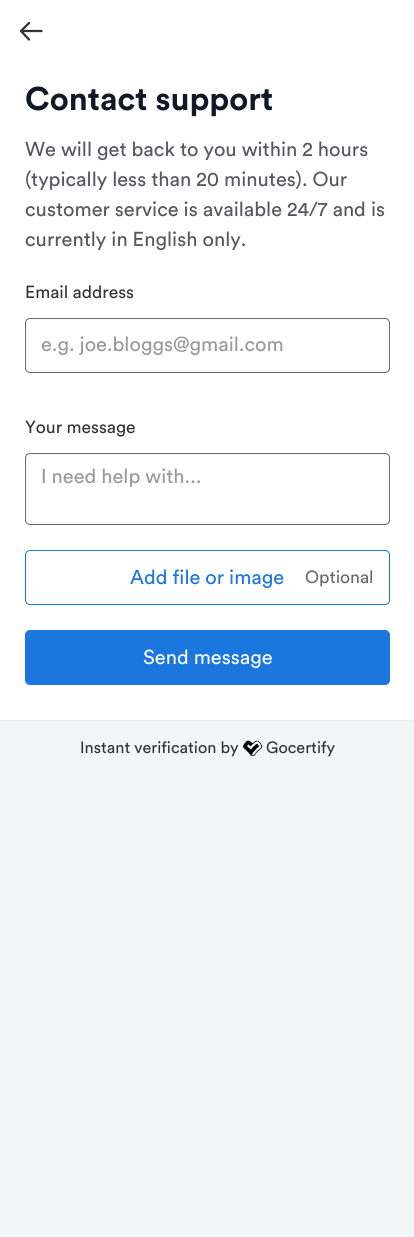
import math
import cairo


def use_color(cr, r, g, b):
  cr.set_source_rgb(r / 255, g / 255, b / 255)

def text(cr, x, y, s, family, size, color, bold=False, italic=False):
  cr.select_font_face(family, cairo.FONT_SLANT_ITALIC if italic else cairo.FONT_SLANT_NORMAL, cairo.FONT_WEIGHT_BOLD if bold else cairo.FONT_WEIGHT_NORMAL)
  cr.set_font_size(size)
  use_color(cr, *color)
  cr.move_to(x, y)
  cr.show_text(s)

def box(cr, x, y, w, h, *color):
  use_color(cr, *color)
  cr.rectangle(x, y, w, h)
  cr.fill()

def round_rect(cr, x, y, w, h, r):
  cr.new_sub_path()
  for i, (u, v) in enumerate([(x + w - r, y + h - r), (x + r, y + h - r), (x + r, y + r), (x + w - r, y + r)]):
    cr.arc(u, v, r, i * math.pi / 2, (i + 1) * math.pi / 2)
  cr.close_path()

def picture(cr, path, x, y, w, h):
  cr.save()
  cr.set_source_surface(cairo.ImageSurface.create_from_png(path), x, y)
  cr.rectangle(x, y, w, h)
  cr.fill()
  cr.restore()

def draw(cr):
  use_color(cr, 244, 245, 247)
  cr.paint()
  box(cr, 0, 0, 414, 720, 255, 255, 255)
  cr.new_path()
  cr.move_to(29, 39.5)
  cr.line_to(21, 31)
  cr.move_to(21, 31)
  cr.line_to(29, 23)
  cr.move_to(21, 31)
  cr.line_to(41.5, 31)
  use_color(cr, 51, 51, 51)
  cr.set_line_width(2.3)
  cr.set_line_cap(cairo.LINE_CAP_ROUND)
  cr.set_line_join(cairo.LINE_JOIN_ROUND)
  cr.stroke()
  round_rect(cr, 25.5, 318.5, 364, 54, 4.5)
  use_color(cr, 104, 104, 112)
  cr.set_line_width(1)
  cr.set_line_cap(cairo.LINE_CAP_BUTT)
  cr.set_line_join(cairo.LINE_JOIN_MITER)
  cr.stroke()
  round_rect(cr, 25.5, 453.5, 364, 71, 4.5)
  cr.stroke()
  round_rect(cr, 25.5, 550.5, 364, 54, 4.5)
  use_color(cr, 27, 118, 222)
  cr.stroke()
  round_rect(cr, 25.5, 630.5, 364, 54, 4.5)
  cr.fill_preserve()
  cr.stroke()
  box(cr, 0, 720, 414, 1, 235, 235, 235)
  picture(cr, "img_01.png", 243, 740, 20, 16)
  text(cr, 25, 110, "Contact support", "Circular", 32.5, (17, 24, 39), bold=True)
  text(cr, 25, 156, "We will get back to you within 2 hours", "Circular", 20, (86, 86, 96))
  text(cr, 25, 186, "(typically less than 20 minutes). Our", "Circular", 20, (86, 86, 96))
  text(cr, 25, 216, "customer service is available 24/7 and is", "Circular", 20, (86, 86, 96))
  text(cr, 25, 246, "currently in English only.", "Circular", 20, (86, 86, 96))
  text(cr, 25, 298, "Email address", "Circular", 17.5, (51, 51, 51))
  text(cr, 41, 351, "e.g. joe.bloggs@gmail.com", "Circular", 20, (153, 153, 153))
  text(cr, 25, 433, "Your message", "Circular", 17.5, (51, 51, 51))
  text(cr, 41, 483, "I need help with...", "Circular", 20, (153, 153, 153))
  text(cr, 130, 584, "Add file or image", "Circular", 20, (27, 118, 222))
  text(cr, 305, 583, "Optional", "Circular", 17.5, (104, 104, 112))
  text(cr, 143, 664, "Send message", "Circular", 20, (255, 255, 255))
  text(cr, 80, 753, "Instant verification by", "Circular", 16.25, (51, 51, 51))
  text(cr, 266, 753, "Gocertify", "Circular", 16.25, (51, 51, 51))


surface = cairo.ImageSurface(cairo.FORMAT_RGB24, 414, 1237)
cr = cairo.Context(surface)
options = cairo.FontOptions()
options.set_hint_metrics(cairo.HINT_METRICS_OFF)
options.set_hint_style(cairo.HINT_STYLE_NONE)
cr.set_font_options(options)
cr.set_miter_limit(4)
draw(cr)
surface.write_to_png("out.png")
